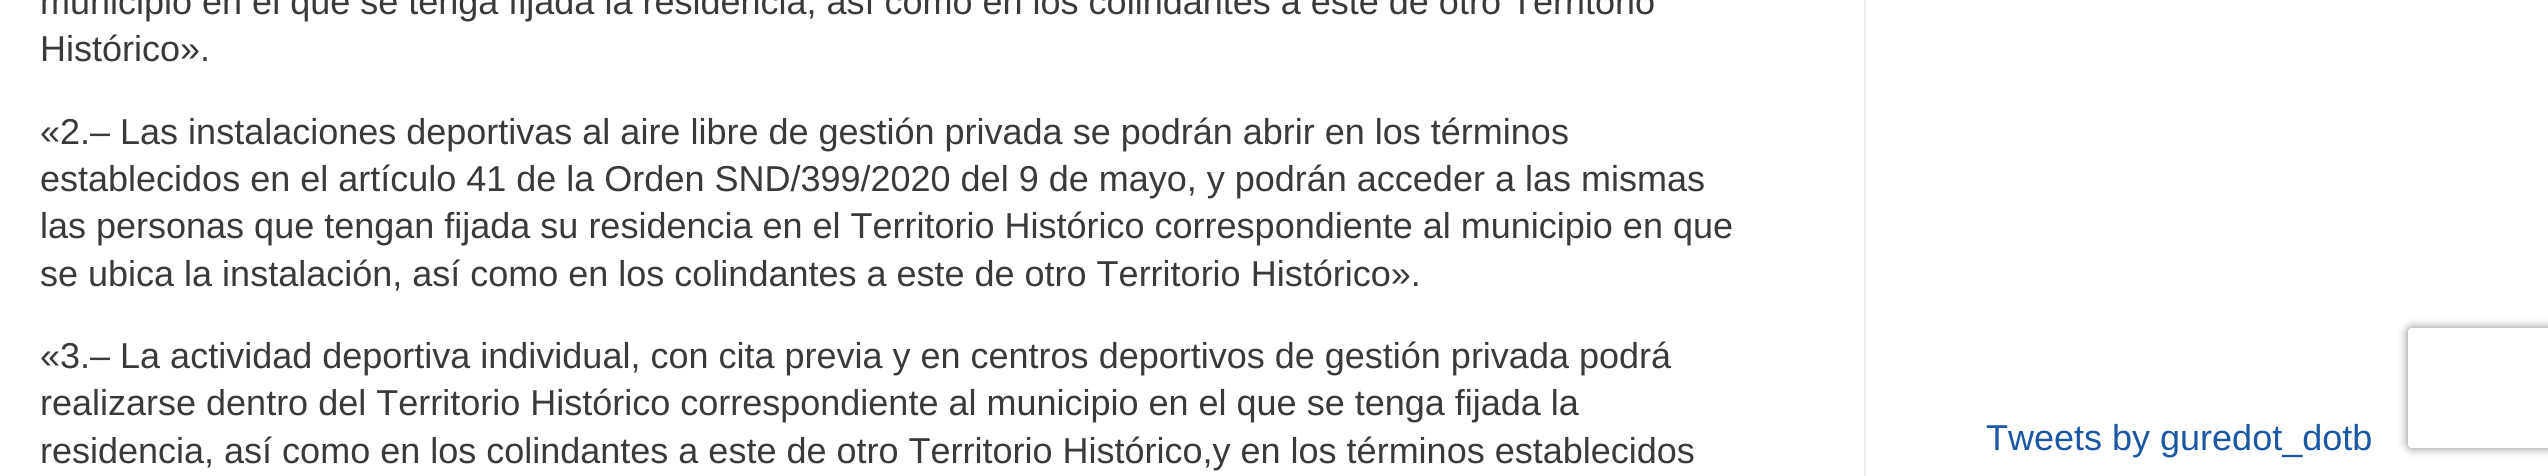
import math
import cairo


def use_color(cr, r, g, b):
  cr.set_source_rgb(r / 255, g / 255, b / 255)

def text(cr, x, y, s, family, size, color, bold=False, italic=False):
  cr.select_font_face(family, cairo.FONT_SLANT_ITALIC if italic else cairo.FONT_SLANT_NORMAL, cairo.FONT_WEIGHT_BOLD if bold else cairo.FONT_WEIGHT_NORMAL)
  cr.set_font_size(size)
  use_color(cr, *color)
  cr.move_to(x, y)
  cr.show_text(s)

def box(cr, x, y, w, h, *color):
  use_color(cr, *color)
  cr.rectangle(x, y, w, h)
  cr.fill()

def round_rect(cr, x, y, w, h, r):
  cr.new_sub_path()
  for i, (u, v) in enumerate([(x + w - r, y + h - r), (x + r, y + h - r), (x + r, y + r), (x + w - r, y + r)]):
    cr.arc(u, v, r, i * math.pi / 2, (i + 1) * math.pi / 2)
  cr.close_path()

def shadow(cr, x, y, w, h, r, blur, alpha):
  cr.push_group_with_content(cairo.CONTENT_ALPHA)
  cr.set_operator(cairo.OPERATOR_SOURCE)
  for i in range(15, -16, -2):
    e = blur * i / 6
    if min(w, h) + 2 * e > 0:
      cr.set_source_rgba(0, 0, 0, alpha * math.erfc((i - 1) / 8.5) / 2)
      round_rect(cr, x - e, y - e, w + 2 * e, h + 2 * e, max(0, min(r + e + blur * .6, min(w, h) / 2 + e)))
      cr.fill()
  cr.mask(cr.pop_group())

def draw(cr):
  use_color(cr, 255, 255, 255)
  cr.paint()
  box(cr, 1864, 0, 2, 476, 238, 238, 238)
  cr.save()
  cr.set_fill_rule(cairo.FILL_RULE_EVEN_ODD)
  cr.new_path()
  cr.move_to(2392, 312)
  cr.line_to(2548, 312)
  cr.line_to(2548, 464)
  cr.line_to(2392, 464)
  cr.close_path()
  cr.move_to(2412, 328)
  cr.line_to(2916, 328)
  cr.curve_to(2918, 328, 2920, 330, 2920, 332)
  cr.line_to(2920, 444)
  cr.curve_to(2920, 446, 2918, 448, 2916, 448)
  cr.line_to(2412, 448)
  cr.curve_to(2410, 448, 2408, 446, 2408, 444)
  cr.line_to(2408, 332)
  cr.curve_to(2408, 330, 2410, 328, 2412, 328)
  cr.close_path()
  cr.clip()
  use_color(cr, 128, 128, 128)
  shadow(cr, 2408, 328, 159, 120, 4, 5, 1)
  cr.restore()
  text(cr, 40, 14, "municipio en el que se tenga fijada la residencia, así como en los colindantes a este de otro Territorio", "Liberation Sans", 36, (58, 58, 58))
  text(cr, 40, 61, "Histórico».", "Liberation Sans", 36, (58, 58, 58))
  text(cr, 40, 144, "«2.– Las instalaciones deportivas al aire libre de gestión privada se podrán abrir en los términos", "Liberation Sans", 36, (58, 58, 58))
  text(cr, 40, 191, "establecidos en el artículo 41 de la Orden SND/399/2020 del 9 de mayo, y podrán acceder a las mismas", "Liberation Sans", 36, (58, 58, 58))
  text(cr, 40, 238, "las personas que tengan fijada su residencia en el Territorio Histórico correspondiente al municipio en que", "Liberation Sans", 36, (58, 58, 58))
  text(cr, 40, 286, "se ubica la instalación, así como en los colindantes a este de otro Territorio Histórico».", "Liberation Sans", 36, (58, 58, 58))
  text(cr, 40, 368, "«3.– La actividad deportiva individual, con cita previa y en centros deportivos de gestión privada podrá", "Liberation Sans", 36, (58, 58, 58))
  text(cr, 40, 415, "realizarse dentro del Territorio Histórico correspondiente al municipio en el que se tenga fijada la", "Liberation Sans", 36, (58, 58, 58))
  text(cr, 40, 463, "residencia, así como en los colindantes a este de otro Territorio Histórico,y en los términos establecidos", "Liberation Sans", 36, (58, 58, 58))
  text(cr, 1986, 450, "Tweets by guredot_dotb", "Liberation Sans", 36, (29, 87, 164))


surface = cairo.ImageSurface(cairo.FORMAT_RGB24, 2548, 476)
cr = cairo.Context(surface)
options = cairo.FontOptions()
options.set_hint_metrics(cairo.HINT_METRICS_OFF)
options.set_hint_style(cairo.HINT_STYLE_NONE)
cr.set_font_options(options)
cr.set_miter_limit(4)
draw(cr)
surface.write_to_png("out.png")
